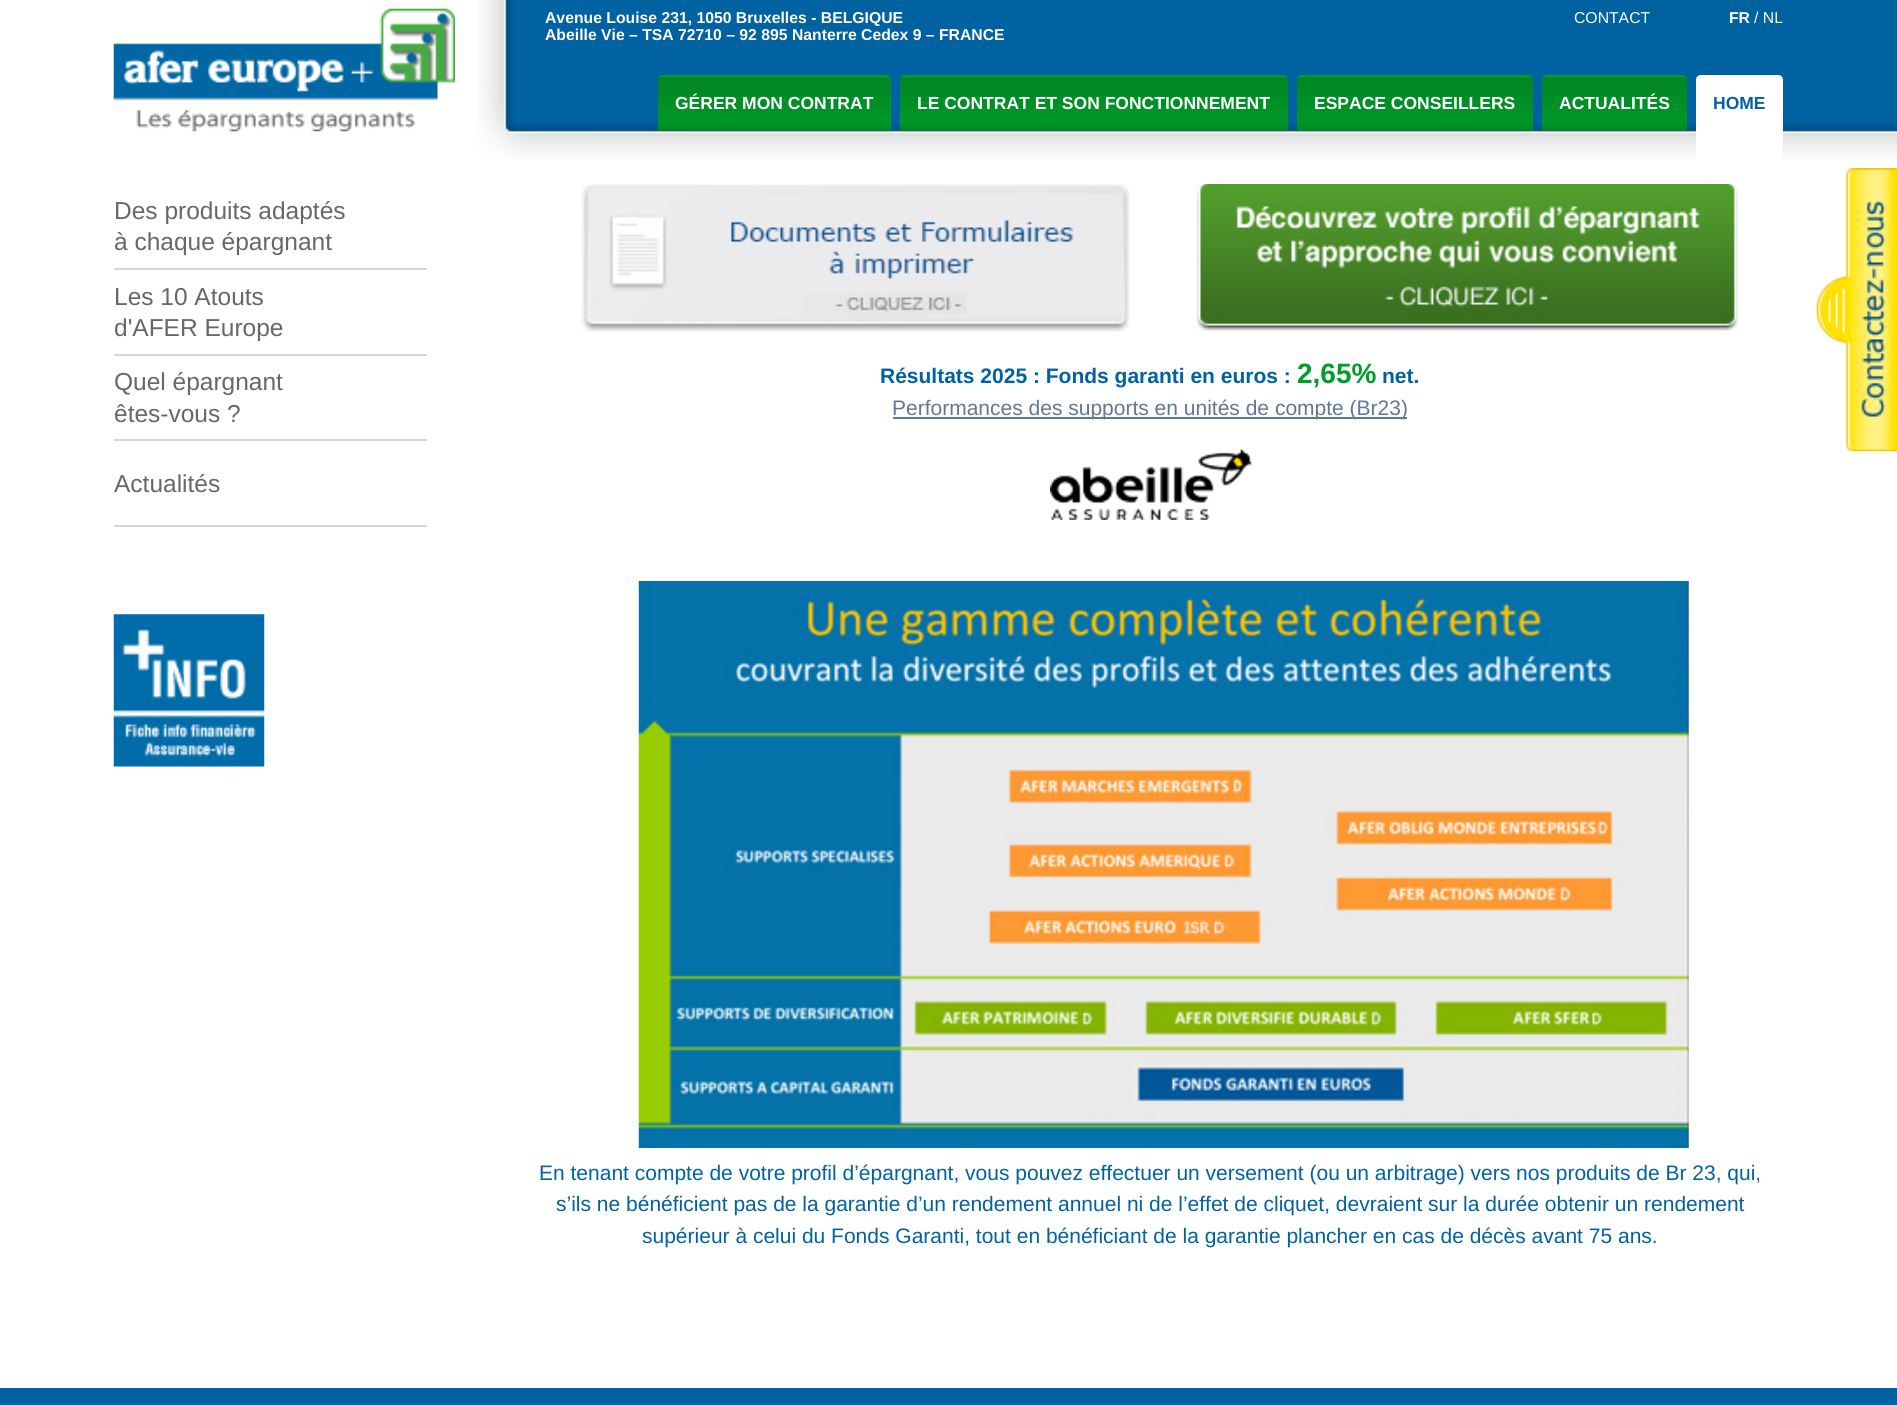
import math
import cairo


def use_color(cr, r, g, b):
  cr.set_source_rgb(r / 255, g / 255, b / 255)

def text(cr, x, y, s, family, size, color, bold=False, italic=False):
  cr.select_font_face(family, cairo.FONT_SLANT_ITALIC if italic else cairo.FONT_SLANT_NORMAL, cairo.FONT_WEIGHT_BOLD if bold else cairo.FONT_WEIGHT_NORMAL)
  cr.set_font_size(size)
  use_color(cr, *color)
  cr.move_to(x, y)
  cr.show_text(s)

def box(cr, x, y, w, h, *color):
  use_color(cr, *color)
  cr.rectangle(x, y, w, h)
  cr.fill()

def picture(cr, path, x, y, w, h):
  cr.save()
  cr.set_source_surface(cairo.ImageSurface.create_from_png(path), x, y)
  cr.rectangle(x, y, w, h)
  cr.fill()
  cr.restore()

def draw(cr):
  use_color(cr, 255, 255, 255)
  cr.paint()
  picture(cr, "img_01.png", 477, 0, 1420, 160)
  picture(cr, "img_02.png", 113, 8, 342, 124)
  use_color(cr, 0, 157, 42)
  cr.new_path()
  cr.move_to(663, 75)
  cr.line_to(886, 75)
  cr.curve_to(889, 75, 891, 77, 891, 80)
  cr.line_to(891, 131)
  cr.line_to(658, 131)
  cr.line_to(658, 80)
  cr.curve_to(658, 77, 660, 75, 663, 75)
  cr.close_path()
  cr.fill()
  picture(cr, "img_03.png", 658, 77, 233, 54)
  cr.new_path()
  cr.move_to(905, 75)
  cr.line_to(1283, 75)
  cr.curve_to(1286, 75, 1288, 77, 1288, 80)
  cr.line_to(1288, 131)
  cr.line_to(900, 131)
  cr.line_to(900, 80)
  cr.curve_to(900, 77, 902, 75, 905, 75)
  cr.close_path()
  cr.fill()
  picture(cr, "img_04.png", 899, 77, 389, 54)
  cr.new_path()
  cr.move_to(1302, 75)
  cr.line_to(1528, 75)
  cr.curve_to(1531, 75, 1533, 77, 1533, 80)
  cr.line_to(1533, 131)
  cr.line_to(1297, 131)
  cr.line_to(1297, 80)
  cr.curve_to(1297, 77, 1299, 75, 1302, 75)
  cr.close_path()
  cr.fill()
  picture(cr, "img_05.png", 1297, 77, 236, 54)
  cr.new_path()
  cr.move_to(1547, 75)
  cr.line_to(1682, 75)
  cr.curve_to(1685, 75, 1687, 77, 1687, 80)
  cr.line_to(1687, 131)
  cr.line_to(1542, 131)
  cr.line_to(1542, 80)
  cr.curve_to(1542, 77, 1544, 75, 1547, 75)
  cr.close_path()
  cr.fill()
  picture(cr, "img_06.png", 1542, 77, 145, 54)
  use_color(cr, 255, 255, 255)
  cr.new_path()
  cr.move_to(1701, 75)
  cr.line_to(1778, 75)
  cr.curve_to(1781, 75, 1783, 77, 1783, 80)
  cr.line_to(1783, 184)
  cr.line_to(1696, 184)
  cr.line_to(1696, 80)
  cr.curve_to(1696, 77, 1698, 75, 1701, 75)
  cr.close_path()
  cr.fill()
  picture(cr, "img_07.png", 1816, 168, 81, 284)
  box(cr, 114, 268, 313, 2, 214, 214, 214)
  box(cr, 114, 354, 313, 2, 214, 214, 214)
  box(cr, 114, 439, 313, 2, 214, 214, 214)
  box(cr, 114, 525, 313, 2, 214, 214, 214)
  picture(cr, "img_08.png", 113, 614, 152, 153)
  picture(cr, "img_09.png", 581, 184, 549, 148)
  picture(cr, "img_10.png", 1192, 184, 547, 147)
  box(cr, 893, 417, 514, 2, 96, 120, 144)
  picture(cr, "img_11.png", 1050, 449, 202, 71)
  picture(cr, "img_12.png", 638, 581, 1051, 567)
  box(cr, 0, 1388, 1897, 17, 0, 98, 161)
  text(cr, 545, 23, "Avenue Louise 231, 1050 Bruxelles - BELGIQUE", "Liberation Sans", 15.75, (255, 255, 255), bold=True)
  text(cr, 545, 40, "Abeille Vie – TSA 72710 – 92 895 Nanterre Cedex 9 – FRANCE", "Liberation Sans", 15.75, (255, 255, 255), bold=True)
  text(cr, 1574, 23, "CONTACT", "Liberation Sans", 15.75, (255, 255, 255))
  text(cr, 1729, 23, "FR", "Liberation Sans", 15.75, (255, 255, 255), bold=True)
  text(cr, 1754, 23, "/ NL", "Liberation Sans", 15.75, (255, 255, 255))
  text(cr, 675, 109, "GÉRER MON CONTRAT", "Liberation Sans", 17.5, (255, 255, 255), bold=True)
  text(cr, 917, 109, "LE CONTRAT ET SON FONCTIONNEMENT", "Liberation Sans", 17.5, (255, 255, 255), bold=True)
  text(cr, 1314, 109, "ESPACE CONSEILLERS", "Liberation Sans", 17.5, (255, 255, 255), bold=True)
  text(cr, 1559, 109, "ACTUALITÉS", "Liberation Sans", 17.5, (255, 255, 255), bold=True)
  text(cr, 1713, 109, "HOME", "Liberation Sans", 17.5, (0, 98, 161), bold=True)
  text(cr, 114, 219, "Des produits adaptés", "Liberation Sans", 24.5, (104, 103, 103))
  text(cr, 114, 250, "à chaque épargnant", "Liberation Sans", 24.5, (104, 103, 103))
  text(cr, 114, 305, "Les 10 Atouts", "Liberation Sans", 24.5, (104, 103, 103))
  text(cr, 114, 336, "d'AFER Europe", "Liberation Sans", 24.5, (104, 103, 103))
  text(cr, 114, 390, "Quel épargnant", "Liberation Sans", 24.5, (104, 103, 103))
  text(cr, 114, 422, "êtes-vous ?", "Liberation Sans", 24.5, (104, 103, 103))
  text(cr, 114, 492, "Actualités", "Liberation Sans", 24.5, (104, 103, 103))
  text(cr, 880, 383, "Résultats 2025 : Fonds garanti en euros :", "Liberation Sans", 21, (0, 98, 161), bold=True)
  text(cr, 1297, 383, "2,65%", "Liberation Sans", 28, (0, 157, 42), bold=True)
  text(cr, 1382, 383, "net.", "Liberation Sans", 21, (0, 98, 161), bold=True)
  text(cr, 892, 415, "Performances des supports en unités de compte (Br23)", "Liberation Sans", 21, (96, 120, 144))
  text(cr, 539, 1180, "En tenant compte de votre profil d’épargnant, vous pouvez effectuer un versement (ou un arbitrage) vers nos produits de Br 23, qui,", "Liberation Sans", 21, (0, 98, 161))
  text(cr, 556, 1211, "s’ils ne bénéficient pas de la garantie d’un rendement annuel ni de l’effet de cliquet, devraient sur la durée obtenir un rendement", "Liberation Sans", 21, (0, 98, 161))
  text(cr, 642, 1243, "supérieur à celui du Fonds Garanti, tout en bénéficiant de la garantie plancher en cas de décès avant 75 ans.", "Liberation Sans", 21, (0, 98, 161))


surface = cairo.ImageSurface(cairo.FORMAT_RGB24, 1897, 1405)
cr = cairo.Context(surface)
options = cairo.FontOptions()
options.set_hint_metrics(cairo.HINT_METRICS_OFF)
options.set_hint_style(cairo.HINT_STYLE_NONE)
cr.set_font_options(options)
cr.set_miter_limit(4)
draw(cr)
surface.write_to_png("out.png")
